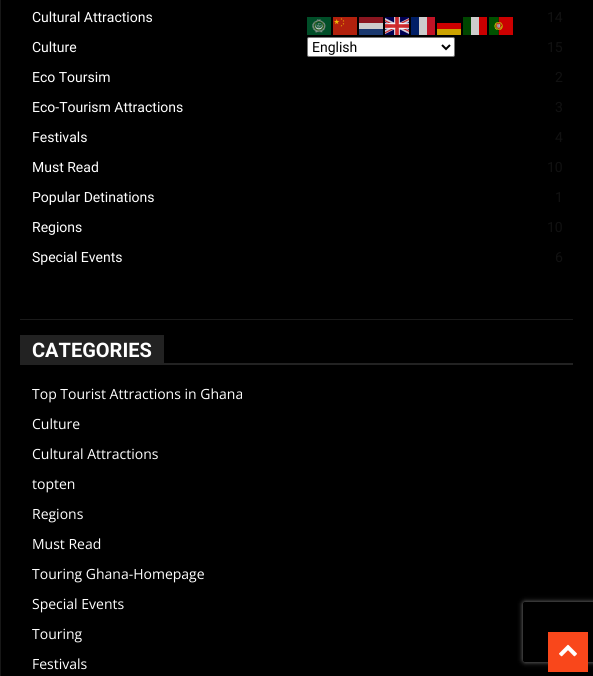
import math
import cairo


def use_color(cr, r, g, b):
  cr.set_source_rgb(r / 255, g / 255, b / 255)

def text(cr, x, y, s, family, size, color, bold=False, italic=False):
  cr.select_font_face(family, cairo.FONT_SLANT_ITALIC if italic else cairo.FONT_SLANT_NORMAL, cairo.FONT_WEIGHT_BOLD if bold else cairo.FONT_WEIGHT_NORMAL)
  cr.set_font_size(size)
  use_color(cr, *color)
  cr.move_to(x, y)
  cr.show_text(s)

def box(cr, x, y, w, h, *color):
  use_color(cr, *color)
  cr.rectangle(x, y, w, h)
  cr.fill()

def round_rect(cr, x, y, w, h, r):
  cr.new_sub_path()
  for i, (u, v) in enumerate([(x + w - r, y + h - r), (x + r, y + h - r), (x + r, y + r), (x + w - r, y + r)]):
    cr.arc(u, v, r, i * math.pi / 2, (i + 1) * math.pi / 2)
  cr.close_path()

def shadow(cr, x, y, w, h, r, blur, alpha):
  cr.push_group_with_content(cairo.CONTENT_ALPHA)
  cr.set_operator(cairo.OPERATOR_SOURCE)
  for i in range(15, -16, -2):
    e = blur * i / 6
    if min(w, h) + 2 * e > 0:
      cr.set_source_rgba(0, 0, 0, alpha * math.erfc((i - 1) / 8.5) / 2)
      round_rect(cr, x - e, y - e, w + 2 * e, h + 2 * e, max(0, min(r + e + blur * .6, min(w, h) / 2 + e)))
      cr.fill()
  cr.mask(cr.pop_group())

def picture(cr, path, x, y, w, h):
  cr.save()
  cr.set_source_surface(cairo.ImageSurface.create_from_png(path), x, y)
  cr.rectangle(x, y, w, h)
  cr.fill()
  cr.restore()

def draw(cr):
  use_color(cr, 23, 23, 23)
  cr.paint()
  box(cr, 1, 0, 592, 676, 0, 0, 0)
  box(cr, 20, 319, 553, 1, 26, 26, 26)
  box(cr, 20, 363, 553, 2, 34, 34, 34)
  box(cr, 20, 335, 144, 28, 34, 34, 34)
  picture(cr, "img_01.png", 307, 17, 24, 18)
  picture(cr, "img_02.png", 333, 17, 24, 18)
  box(cr, 359, 17, 24, 6, 139, 22, 32)
  picture(cr, "img_03.png", 385, 17, 24, 18)
  box(cr, 411, 17, 8, 18, 0, 30, 102)
  box(cr, 419, 17, 8, 18, 204, 204, 204)
  box(cr, 427, 17, 8, 18, 194, 19, 38)
  box(cr, 463, 17, 8, 18, 0, 70, 0)
  box(cr, 471, 17, 8, 18, 204, 204, 204)
  box(cr, 479, 17, 8, 18, 202, 0, 0)
  picture(cr, "img_04.png", 489, 17, 24, 18)
  box(cr, 359, 23, 24, 6, 204, 204, 204)
  box(cr, 437, 23, 24, 6, 204, 0, 0)
  box(cr, 359, 29, 24, 6, 26, 56, 111)
  box(cr, 437, 29, 24, 6, 204, 163, 0)
  use_color(cr, 255, 255, 255)
  round_rect(cr, 307.5, 37.5, 147, 19, 1.5)
  cr.fill_preserve()
  use_color(cr, 118, 118, 118)
  cr.set_line_width(1)
  cr.stroke()
  cr.new_path()
  cr.move_to(442, 45)
  cr.line_to(446, 49)
  cr.line_to(450, 45)
  use_color(cr, 0, 0, 0)
  cr.set_line_width(2)
  cr.stroke()
  cr.save()
  cr.set_fill_rule(cairo.FILL_RULE_EVEN_ODD)
  cr.new_path()
  cr.move_to(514, 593)
  cr.line_to(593, 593)
  cr.line_to(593, 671)
  cr.line_to(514, 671)
  cr.close_path()
  cr.move_to(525, 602)
  cr.line_to(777, 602)
  cr.curve_to(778, 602, 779, 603, 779, 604)
  cr.line_to(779, 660)
  cr.curve_to(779, 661, 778, 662, 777, 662)
  cr.line_to(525, 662)
  cr.curve_to(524, 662, 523, 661, 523, 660)
  cr.line_to(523, 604)
  cr.curve_to(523, 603, 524, 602, 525, 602)
  cr.close_path()
  cr.clip()
  use_color(cr, 128, 128, 128)
  shadow(cr, 523, 602, 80, 60, 2, 2.5, 1)
  cr.restore()
  box(cr, 548, 632, 40, 40, 249, 71, 27)
  picture(cr, "img_05.png", 559, 644, 18, 13)
  text(cr, 32, 22, "Cultural Attractions", "Roboto", 14, (255, 255, 255))
  text(cr, 547, 22, "14", "Roboto", 14, (17, 17, 17))
  text(cr, 32, 52, "Culture", "Roboto", 14, (255, 255, 255))
  text(cr, 547, 52, "15", "Roboto", 14, (17, 17, 17))
  text(cr, 32, 82, "Eco Toursim", "Roboto", 14, (255, 255, 255))
  text(cr, 555, 82, "2", "Roboto", 14, (17, 17, 17))
  text(cr, 32, 112, "Eco-Tourism Attractions", "Roboto", 14, (255, 255, 255))
  text(cr, 555, 112, "3", "Roboto", 14, (17, 17, 17))
  text(cr, 32, 142, "Festivals", "Roboto", 14, (255, 255, 255))
  text(cr, 555, 142, "4", "Roboto", 14, (17, 17, 17))
  text(cr, 32, 172, "Must Read", "Roboto", 14, (255, 255, 255))
  text(cr, 547, 172, "10", "Roboto", 14, (17, 17, 17))
  text(cr, 32, 202, "Popular Detinations", "Roboto", 14, (255, 255, 255))
  text(cr, 555, 202, "1", "Roboto", 14, (17, 17, 17))
  text(cr, 32, 232, "Regions", "Roboto", 14, (255, 255, 255))
  text(cr, 547, 232, "10", "Roboto", 14, (17, 17, 17))
  text(cr, 32, 262, "Special Events", "Roboto", 14, (255, 255, 255))
  text(cr, 555, 262, "6", "Roboto", 14, (17, 17, 17))
  text(cr, 32, 357, "CATEGORIES", "Roboto", 20, (255, 255, 255), bold=True)
  text(cr, 32, 399, "Top Tourist Attractions in Ghana", "Open Sans", 14, (255, 255, 255))
  text(cr, 32, 429, "Culture", "Open Sans", 14, (255, 255, 255))
  text(cr, 32, 459, "Cultural Attractions", "Open Sans", 14, (255, 255, 255))
  text(cr, 32, 489, "topten", "Open Sans", 14, (255, 255, 255))
  text(cr, 32, 519, "Regions", "Open Sans", 14, (255, 255, 255))
  text(cr, 32, 549, "Must Read", "Open Sans", 14, (255, 255, 255))
  text(cr, 32, 579, "Touring Ghana-Homepage", "Open Sans", 14, (255, 255, 255))
  text(cr, 32, 609, "Special Events", "Open Sans", 14, (255, 255, 255))
  text(cr, 32, 639, "Touring", "Open Sans", 14, (255, 255, 255))
  text(cr, 32, 669, "Festivals", "Open Sans", 14, (255, 255, 255))
  text(cr, 312, 52, "English", "Roboto", 14, (0, 0, 0))


surface = cairo.ImageSurface(cairo.FORMAT_RGB24, 593, 676)
cr = cairo.Context(surface)
options = cairo.FontOptions()
options.set_hint_metrics(cairo.HINT_METRICS_OFF)
options.set_hint_style(cairo.HINT_STYLE_NONE)
cr.set_font_options(options)
cr.set_miter_limit(4)
draw(cr)
surface.write_to_png("out.png")
